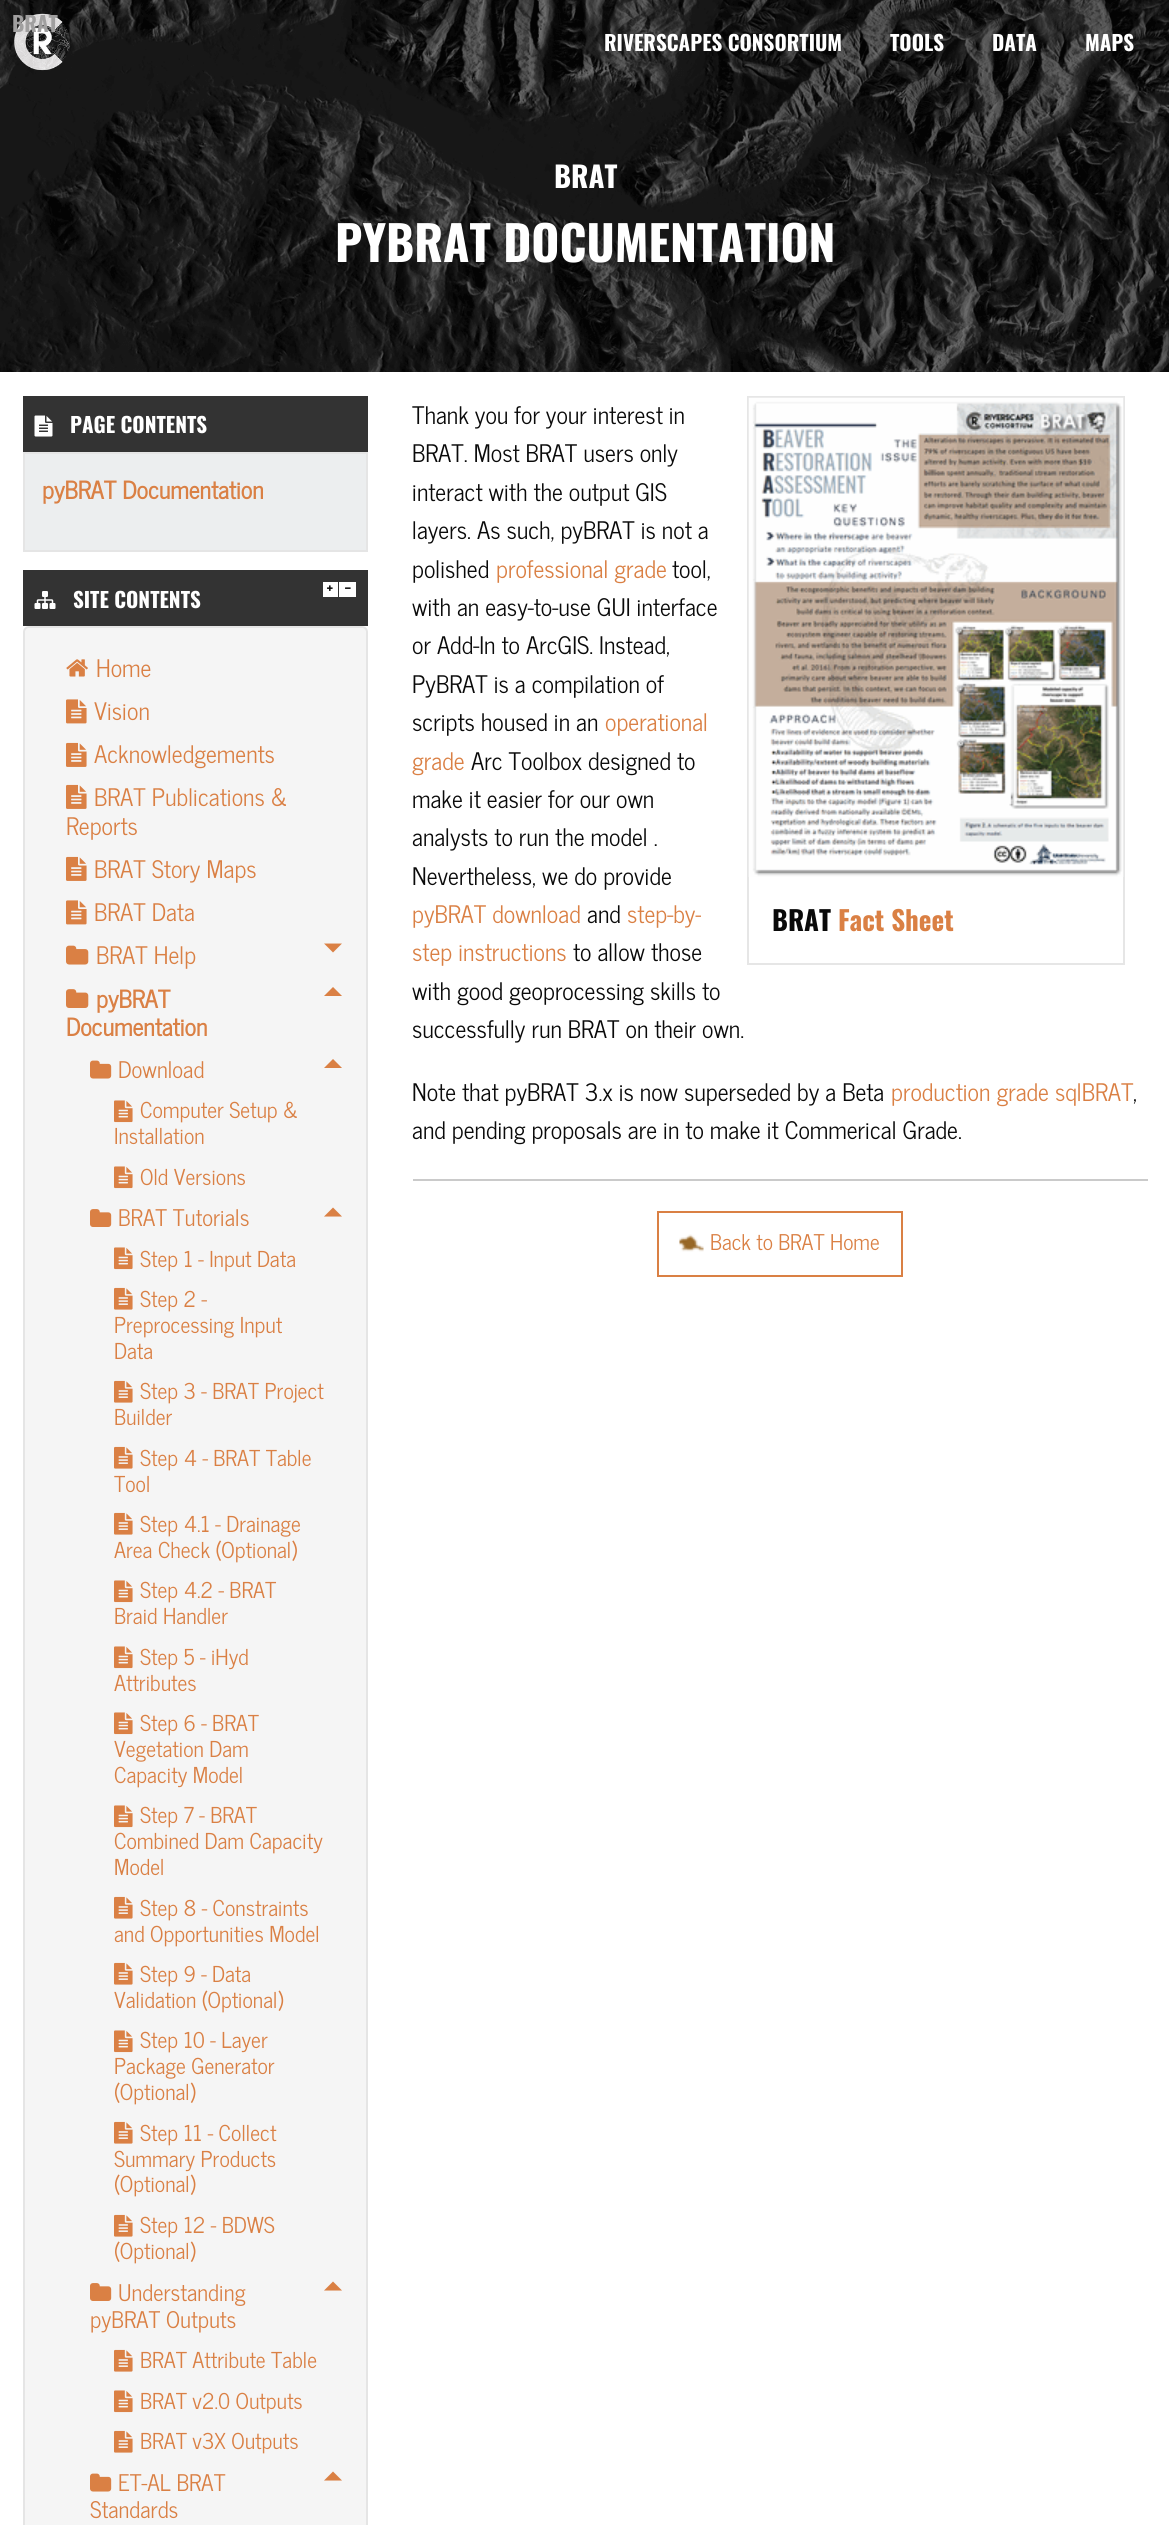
import math
import cairo


def use_color(cr, r, g, b):
  cr.set_source_rgb(r / 255, g / 255, b / 255)

def text(cr, x, y, s, family, size, color, bold=False, italic=False):
  cr.select_font_face(family, cairo.FONT_SLANT_ITALIC if italic else cairo.FONT_SLANT_NORMAL, cairo.FONT_WEIGHT_BOLD if bold else cairo.FONT_WEIGHT_NORMAL)
  cr.set_font_size(size)
  use_color(cr, *color)
  cr.move_to(x, y)
  cr.show_text(s)

def box(cr, x, y, w, h, *color):
  use_color(cr, *color)
  cr.rectangle(x, y, w, h)
  cr.fill()

def round_rect(cr, x, y, w, h, r):
  cr.new_sub_path()
  for i, (u, v) in enumerate([(x + w - r, y + h - r), (x + r, y + h - r), (x + r, y + r), (x + w - r, y + r)]):
    cr.arc(u, v, r, i * math.pi / 2, (i + 1) * math.pi / 2)
  cr.close_path()

def picture(cr, path, x, y, w, h):
  cr.save()
  cr.set_source_surface(cairo.ImageSurface.create_from_png(path), x, y)
  cr.rectangle(x, y, w, h)
  cr.fill()
  cr.restore()

def draw(cr):
  use_color(cr, 255, 255, 255)
  cr.paint()
  picture(cr, "img_01.png", 0, 0, 1169, 372)
  picture(cr, "img_02.png", 14, 13, 56, 58)
  box(cr, 23, 396, 345, 56, 51, 51, 51)
  picture(cr, "img_03.png", 34, 415, 19, 22)
  use_color(cr, 236, 238, 239)
  cr.rectangle(24, 453, 343, 98)
  cr.fill_preserve()
  use_color(cr, 229, 229, 229)
  cr.stroke()
  box(cr, 23, 570, 345, 56, 51, 51, 51)
  picture(cr, "img_04.png", 34, 591, 22, 18)
  box(cr, 323, 582, 15, 15, 255, 255, 255)
  picture(cr, "img_05.png", 327, 585, 6, 6)
  box(cr, 339, 582, 17, 15, 255, 255, 255)
  picture(cr, "img_06.png", 345, 587, 6, 2)
  use_color(cr, 245, 245, 245)
  round_rect(cr, 24, 627, 343, 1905, 5)
  cr.fill_preserve()
  use_color(cr, 229, 229, 229)
  cr.stroke()
  picture(cr, "img_07.png", 66, 659, 22, 18)
  picture(cr, "img_08.png", 66, 699, 21, 25)
  picture(cr, "img_09.png", 66, 742, 21, 25)
  picture(cr, "img_09.png", 66, 784, 21, 25)
  picture(cr, "img_09.png", 66, 856, 21, 25)
  picture(cr, "img_08.png", 66, 900, 21, 25)
  picture(cr, "img_10.png", 66, 945, 23, 20)
  use_color(cr, 218, 128, 68)
  cr.new_path()
  cr.move_to(324, 943.5)
  cr.line_to(342, 943.5)
  cr.line_to(333, 952.5)
  cr.close_path()
  cr.fill()
  picture(cr, "img_11.png", 66, 989, 23, 19)
  cr.new_path()
  cr.move_to(324, 996)
  cr.line_to(342, 996)
  cr.line_to(333, 987)
  cr.close_path()
  cr.fill()
  picture(cr, "img_12.png", 90, 1060, 22, 19)
  cr.new_path()
  cr.move_to(324, 1068)
  cr.line_to(342, 1068)
  cr.line_to(333, 1059)
  cr.close_path()
  cr.fill()
  picture(cr, "img_13.png", 114, 1100, 19, 23)
  picture(cr, "img_13.png", 114, 1166, 19, 23)
  picture(cr, "img_14.png", 90, 1209, 22, 18)
  cr.new_path()
  cr.move_to(324, 1216.5)
  cr.line_to(342, 1216.5)
  cr.line_to(333, 1207.5)
  cr.close_path()
  cr.fill()
  picture(cr, "img_13.png", 114, 1247, 19, 23)
  picture(cr, "img_15.png", 114, 1287, 19, 23)
  picture(cr, "img_15.png", 114, 1380, 19, 23)
  picture(cr, "img_15.png", 114, 1446, 19, 23)
  picture(cr, "img_15.png", 114, 1512, 19, 23)
  picture(cr, "img_13.png", 114, 1580, 19, 23)
  picture(cr, "img_13.png", 114, 1646, 19, 23)
  picture(cr, "img_13.png", 114, 1712, 19, 23)
  picture(cr, "img_13.png", 114, 1805, 19, 23)
  picture(cr, "img_15.png", 114, 1896, 19, 23)
  picture(cr, "img_15.png", 114, 1962, 19, 23)
  picture(cr, "img_13.png", 114, 2030, 19, 23)
  picture(cr, "img_15.png", 114, 2121, 19, 23)
  picture(cr, "img_15.png", 114, 2214, 19, 23)
  picture(cr, "img_14.png", 90, 2283, 22, 18)
  cr.new_path()
  cr.move_to(324, 2290.5)
  cr.line_to(342, 2290.5)
  cr.line_to(333, 2281.5)
  cr.close_path()
  cr.fill()
  picture(cr, "img_15.png", 114, 2349, 19, 23)
  picture(cr, "img_13.png", 114, 2390, 19, 23)
  picture(cr, "img_15.png", 114, 2430, 19, 23)
  picture(cr, "img_12.png", 90, 2473, 22, 19)
  cr.new_path()
  cr.move_to(324, 2480.5)
  cr.line_to(342, 2480.5)
  cr.line_to(333, 2471.5)
  cr.close_path()
  cr.fill()
  cr.rectangle(748, 397, 376, 567)
  use_color(cr, 230, 230, 230)
  cr.stroke()
  picture(cr, "img_16.png", 748, 397, 376, 480)
  box(cr, 413, 1179, 735, 2, 202, 202, 202)
  cr.rectangle(658, 1212, 244, 64)
  use_color(cr, 218, 128, 68)
  cr.stroke()
  picture(cr, "img_17.png", 679, 1234, 25, 18)
  text(cr, 12, 32, "BRAT", "Oswald", 21, (160, 159, 159), bold=True)
  text(cr, 604, 51, "RIVERSCAPES CONSORTIUM", "Oswald", 21, (255, 255, 255), bold=True)
  text(cr, 890, 51, "TOOLS", "Oswald", 21, (255, 255, 255), bold=True)
  text(cr, 992, 51, "DATA", "Oswald", 21, (255, 255, 255), bold=True)
  text(cr, 1085, 51, "MAPS", "Oswald", 21, (255, 255, 255), bold=True)
  text(cr, 554, 188, "BRAT", "Oswald", 29, (255, 255, 255), bold=True)
  text(cr, 335, 262, "PYBRAT DOCUMENTATION", "Oswald", 48, (255, 255, 255), bold=True)
  text(cr, 70, 433, "PAGE CONTENTS", "Oswald", 21, (255, 255, 255), bold=True)
  text(cr, 42, 499, "pyBRAT Documentation", "News Cycle", 24, (218, 128, 68), bold=True)
  text(cr, 73, 608, "SITE CONTENTS", "Oswald", 21, (255, 255, 255), bold=True)
  text(cr, 96, 677, "Home", "News Cycle", 24, (218, 128, 68))
  text(cr, 94, 720, "Vision", "News Cycle", 24, (218, 128, 68))
  text(cr, 94, 763, "Acknowledgements", "News Cycle", 24, (218, 128, 68))
  text(cr, 94, 806, "BRAT Publications &", "News Cycle", 24, (218, 128, 68))
  text(cr, 66, 835, "Reports", "News Cycle", 24, (218, 128, 68))
  text(cr, 94, 878, "BRAT Story Maps", "News Cycle", 24, (218, 128, 68))
  text(cr, 94, 921, "BRAT Data", "News Cycle", 24, (218, 128, 68))
  text(cr, 96, 964, "BRAT Help", "News Cycle", 24, (218, 128, 68))
  text(cr, 96, 1008, "pyBRAT", "News Cycle", 24, (218, 128, 68), bold=True)
  text(cr, 66, 1036, "Documentation", "News Cycle", 24, (218, 128, 68), bold=True)
  text(cr, 118, 1078, "Download", "News Cycle", 22.75, (218, 128, 68))
  text(cr, 140, 1118, "Computer Setup &", "News Cycle", 21.75, (218, 128, 68))
  text(cr, 114, 1144, "Installation", "News Cycle", 21.75, (218, 128, 68))
  text(cr, 140, 1185, "Old Versions", "News Cycle", 21.75, (218, 128, 68))
  text(cr, 118, 1226, "BRAT Tutorials", "News Cycle", 22.75, (218, 128, 68))
  text(cr, 140, 1267, "Step 1 - Input Data", "News Cycle", 21.75, (218, 128, 68))
  text(cr, 140, 1307, "Step 2 -", "News Cycle", 21.75, (218, 128, 68))
  text(cr, 114, 1333, "Preprocessing Input", "News Cycle", 21.75, (218, 128, 68))
  text(cr, 114, 1359, "Data", "News Cycle", 21.75, (218, 128, 68))
  text(cr, 140, 1399, "Step 3 - BRAT Project", "News Cycle", 21.75, (218, 128, 68))
  text(cr, 114, 1425, "Builder", "News Cycle", 21.75, (218, 128, 68))
  text(cr, 140, 1466, "Step 4 - BRAT Table", "News Cycle", 21.75, (218, 128, 68))
  text(cr, 114, 1492, "Tool", "News Cycle", 21.75, (218, 128, 68))
  text(cr, 140, 1532, "Step 4.1 - Drainage", "News Cycle", 21.75, (218, 128, 68))
  text(cr, 114, 1558, "Area Check (Optional)", "News Cycle", 21.75, (218, 128, 68))
  text(cr, 140, 1598, "Step 4.2 - BRAT", "News Cycle", 21.75, (218, 128, 68))
  text(cr, 114, 1624, "Braid Handler", "News Cycle", 21.75, (218, 128, 68))
  text(cr, 140, 1665, "Step 5 - iHyd", "News Cycle", 21.75, (218, 128, 68))
  text(cr, 114, 1691, "Attributes", "News Cycle", 21.75, (218, 128, 68))
  text(cr, 140, 1731, "Step 6 - BRAT", "News Cycle", 21.75, (218, 128, 68))
  text(cr, 114, 1757, "Vegetation Dam", "News Cycle", 21.75, (218, 128, 68))
  text(cr, 114, 1783, "Capacity Model", "News Cycle", 21.75, (218, 128, 68))
  text(cr, 140, 1823, "Step 7 - BRAT", "News Cycle", 21.75, (218, 128, 68))
  text(cr, 114, 1849, "Combined Dam Capacity", "News Cycle", 21.75, (218, 128, 68))
  text(cr, 114, 1875, "Model", "News Cycle", 21.75, (218, 128, 68))
  text(cr, 140, 1916, "Step 8 - Constraints", "News Cycle", 21.75, (218, 128, 68))
  text(cr, 114, 1942, "and Opportunities Model", "News Cycle", 21.75, (218, 128, 68))
  text(cr, 140, 1982, "Step 9 - Data", "News Cycle", 21.75, (218, 128, 68))
  text(cr, 114, 2008, "Validation (Optional)", "News Cycle", 21.75, (218, 128, 68))
  text(cr, 140, 2048, "Step 10 - Layer", "News Cycle", 21.75, (218, 128, 68))
  text(cr, 114, 2074, "Package Generator", "News Cycle", 21.75, (218, 128, 68))
  text(cr, 114, 2100, "(Optional)", "News Cycle", 21.75, (218, 128, 68))
  text(cr, 140, 2141, "Step 11 - Collect", "News Cycle", 21.75, (218, 128, 68))
  text(cr, 114, 2167, "Summary Products", "News Cycle", 21.75, (218, 128, 68))
  text(cr, 114, 2192, "(Optional)", "News Cycle", 21.75, (218, 128, 68))
  text(cr, 140, 2233, "Step 12 - BDWS", "News Cycle", 21.75, (218, 128, 68))
  text(cr, 114, 2259, "(Optional)", "News Cycle", 21.75, (218, 128, 68))
  text(cr, 118, 2301, "Understanding", "News Cycle", 22.75, (218, 128, 68))
  text(cr, 90, 2328, "pyBRAT Outputs", "News Cycle", 22.75, (218, 128, 68))
  text(cr, 140, 2368, "BRAT Attribute Table", "News Cycle", 21.75, (218, 128, 68))
  text(cr, 140, 2409, "BRAT v2.0 Outputs", "News Cycle", 21.75, (218, 128, 68))
  text(cr, 140, 2449, "BRAT v3X Outputs", "News Cycle", 21.75, (218, 128, 68))
  text(cr, 118, 2491, "ET-AL BRAT", "News Cycle", 22.75, (218, 128, 68))
  text(cr, 90, 2518, "Standards", "News Cycle", 22.75, (218, 128, 68))
  text(cr, 412, 424, "Thank you for your interest in", "News Cycle", 24, (10, 10, 10))
  text(cr, 412, 462, "BRAT. Most BRAT users only", "News Cycle", 24, (10, 10, 10))
  text(cr, 412, 501, "interact with the output GIS", "News Cycle", 24, (10, 10, 10))
  text(cr, 412, 539, "layers. As such, pyBRAT is not a", "News Cycle", 24, (10, 10, 10))
  text(cr, 412, 578, "polished", "News Cycle", 24, (10, 10, 10))
  text(cr, 496, 578, "professional grade", "News Cycle", 24, (218, 128, 68))
  text(cr, 672, 578, "tool,", "News Cycle", 24, (10, 10, 10))
  text(cr, 412, 616, "with an easy-to-use GUI interface", "News Cycle", 24, (10, 10, 10))
  text(cr, 412, 654, "or Add-In to ArcGIS. Instead,", "News Cycle", 24, (10, 10, 10))
  text(cr, 412, 693, "PyBRAT is a compilation of", "News Cycle", 24, (10, 10, 10))
  text(cr, 412, 731, "scripts housed in an", "News Cycle", 24, (10, 10, 10))
  text(cr, 605, 731, "operational", "News Cycle", 24, (218, 128, 68))
  text(cr, 412, 770, "grade", "News Cycle", 24, (218, 128, 68))
  text(cr, 471, 770, "Arc Toolbox designed to", "News Cycle", 24, (10, 10, 10))
  text(cr, 412, 808, "make it easier for our own", "News Cycle", 24, (10, 10, 10))
  text(cr, 412, 846, "analysts to run the model .", "News Cycle", 24, (10, 10, 10))
  text(cr, 412, 885, "Nevertheless, we do provide", "News Cycle", 24, (10, 10, 10))
  text(cr, 412, 923, "pyBRAT download", "News Cycle", 24, (218, 128, 68))
  text(cr, 587, 923, "and", "News Cycle", 24, (10, 10, 10))
  text(cr, 627, 923, "step-by-", "News Cycle", 24, (218, 128, 68))
  text(cr, 412, 961, "step instructions", "News Cycle", 24, (218, 128, 68))
  text(cr, 573, 961, "to allow those", "News Cycle", 24, (10, 10, 10))
  text(cr, 412, 1000, "with good geoprocessing skills to", "News Cycle", 24, (10, 10, 10))
  text(cr, 412, 1038, "successfully run BRAT on their own.", "News Cycle", 24, (10, 10, 10))
  text(cr, 772, 931, "BRAT", "Oswald", 27, (10, 10, 10), bold=True)
  text(cr, 838, 931, "Fact Sheet", "Oswald", 27, (218, 128, 68), bold=True)
  text(cr, 412, 1101, "Note that pyBRAT 3.x is now superseded by a Beta", "News Cycle", 24, (10, 10, 10))
  text(cr, 891, 1101, "production grade sqlBRAT", "News Cycle", 24, (218, 128, 68))
  text(cr, 1133, 1101, ",", "News Cycle", 24, (10, 10, 10))
  text(cr, 412, 1139, "and pending proposals are in to make it Commerical Grade.", "News Cycle", 24, (10, 10, 10))
  text(cr, 710, 1250, "Back to BRAT Home", "News Cycle", 21.5, (218, 128, 68))


surface = cairo.ImageSurface(cairo.FORMAT_RGB24, 1169, 2525)
cr = cairo.Context(surface)
options = cairo.FontOptions()
options.set_hint_metrics(cairo.HINT_METRICS_OFF)
options.set_hint_style(cairo.HINT_STYLE_NONE)
cr.set_font_options(options)
cr.set_miter_limit(4)
draw(cr)
surface.write_to_png("out.png")
